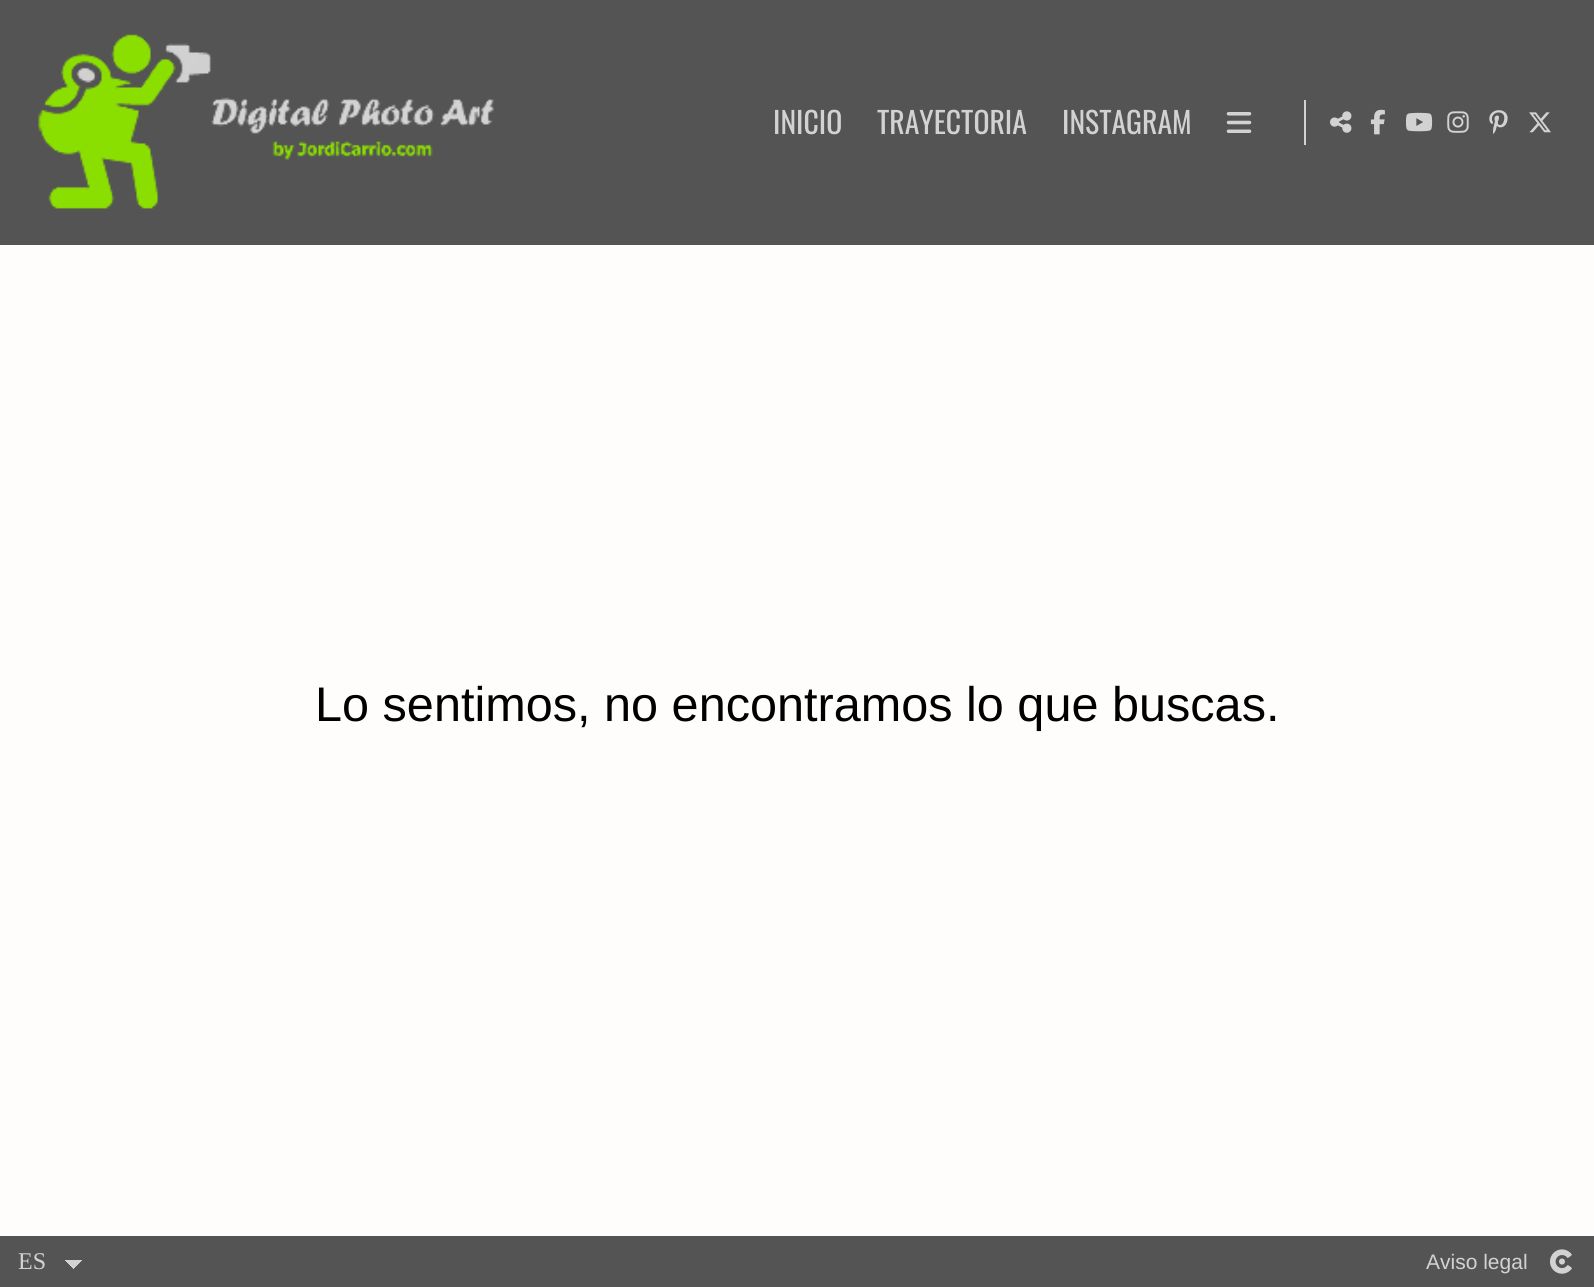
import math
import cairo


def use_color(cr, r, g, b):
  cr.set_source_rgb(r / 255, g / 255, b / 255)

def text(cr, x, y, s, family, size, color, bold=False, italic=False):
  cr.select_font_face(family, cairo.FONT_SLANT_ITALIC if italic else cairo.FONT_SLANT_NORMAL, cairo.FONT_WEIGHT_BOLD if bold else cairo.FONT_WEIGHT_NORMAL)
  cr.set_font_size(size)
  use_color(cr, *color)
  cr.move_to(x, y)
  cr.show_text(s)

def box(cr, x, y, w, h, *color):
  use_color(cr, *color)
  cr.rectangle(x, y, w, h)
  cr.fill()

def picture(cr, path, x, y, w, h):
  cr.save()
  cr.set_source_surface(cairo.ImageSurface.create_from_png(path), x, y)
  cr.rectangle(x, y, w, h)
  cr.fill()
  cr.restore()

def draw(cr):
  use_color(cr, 255, 252, 252)
  cr.paint()
  box(cr, 0, 0, 1594, 245, 84, 84, 84)
  picture(cr, "img_01.png", 38, 34, 456, 175)
  picture(cr, "img_02.png", 1226, 112, 26, 21)
  box(cr, 1304, 100, 2, 45, 210, 210, 210)
  picture(cr, "img_03.png", 1330, 111, 22, 22)
  picture(cr, "img_04.png", 1370, 109, 15, 26)
  picture(cr, "img_05.png", 1406, 112, 27, 20)
  picture(cr, "img_06.png", 1447, 111, 22, 22)
  picture(cr, "img_07.png", 1489, 110, 19, 24)
  picture(cr, "img_08.png", 1529, 112, 22, 21)
  box(cr, 0, 1236, 1594, 51, 84, 84, 84)
  gradient = cairo.LinearGradient(74, 1261, 82, 1269)
  gradient.add_color_stop_rgba(0.5, 0.824, 0.824, 0.824, 1)
  gradient.add_color_stop_rgba(0.5, 0.329, 0.329, 0.329, 1)
  cr.set_source(gradient)
  cr.rectangle(74, 1260, 8, 9)
  cr.fill()
  gradient = cairo.LinearGradient(65, 1269, 74, 1261)
  gradient.add_color_stop_rgba(0.5, 0.329, 0.329, 0.329, 1)
  gradient.add_color_stop_rgba(0.5, 0.824, 0.824, 0.824, 1)
  cr.set_source(gradient)
  cr.rectangle(65, 1260, 9, 9)
  cr.fill()
  picture(cr, "img_09.png", 1550, 1249, 22, 25)
  text(cr, 773, 134, "INICIO", "Oswald", 29.75, (210, 210, 210))
  text(cr, 877, 134, "TRAYECTORIA", "Oswald", 29.75, (210, 210, 210))
  text(cr, 1062, 134, "INSTAGRAM", "Oswald", 29.75, (210, 210, 210))
  text(cr, 315, 721, "Lo sentimos, no encontramos lo que buscas.", "Liberation Sans", 48.6, (0, 0, 0))
  text(cr, 18, 1269, "ES", "Liberation Serif", 24, (210, 210, 210))
  text(cr, 1426, 1269, "Aviso legal", "Liberation Sans", 21, (210, 210, 210))


surface = cairo.ImageSurface(cairo.FORMAT_RGB24, 1594, 1287)
cr = cairo.Context(surface)
options = cairo.FontOptions()
options.set_hint_metrics(cairo.HINT_METRICS_OFF)
options.set_hint_style(cairo.HINT_STYLE_NONE)
cr.set_font_options(options)
cr.set_miter_limit(4)
draw(cr)
surface.write_to_png("out.png")
